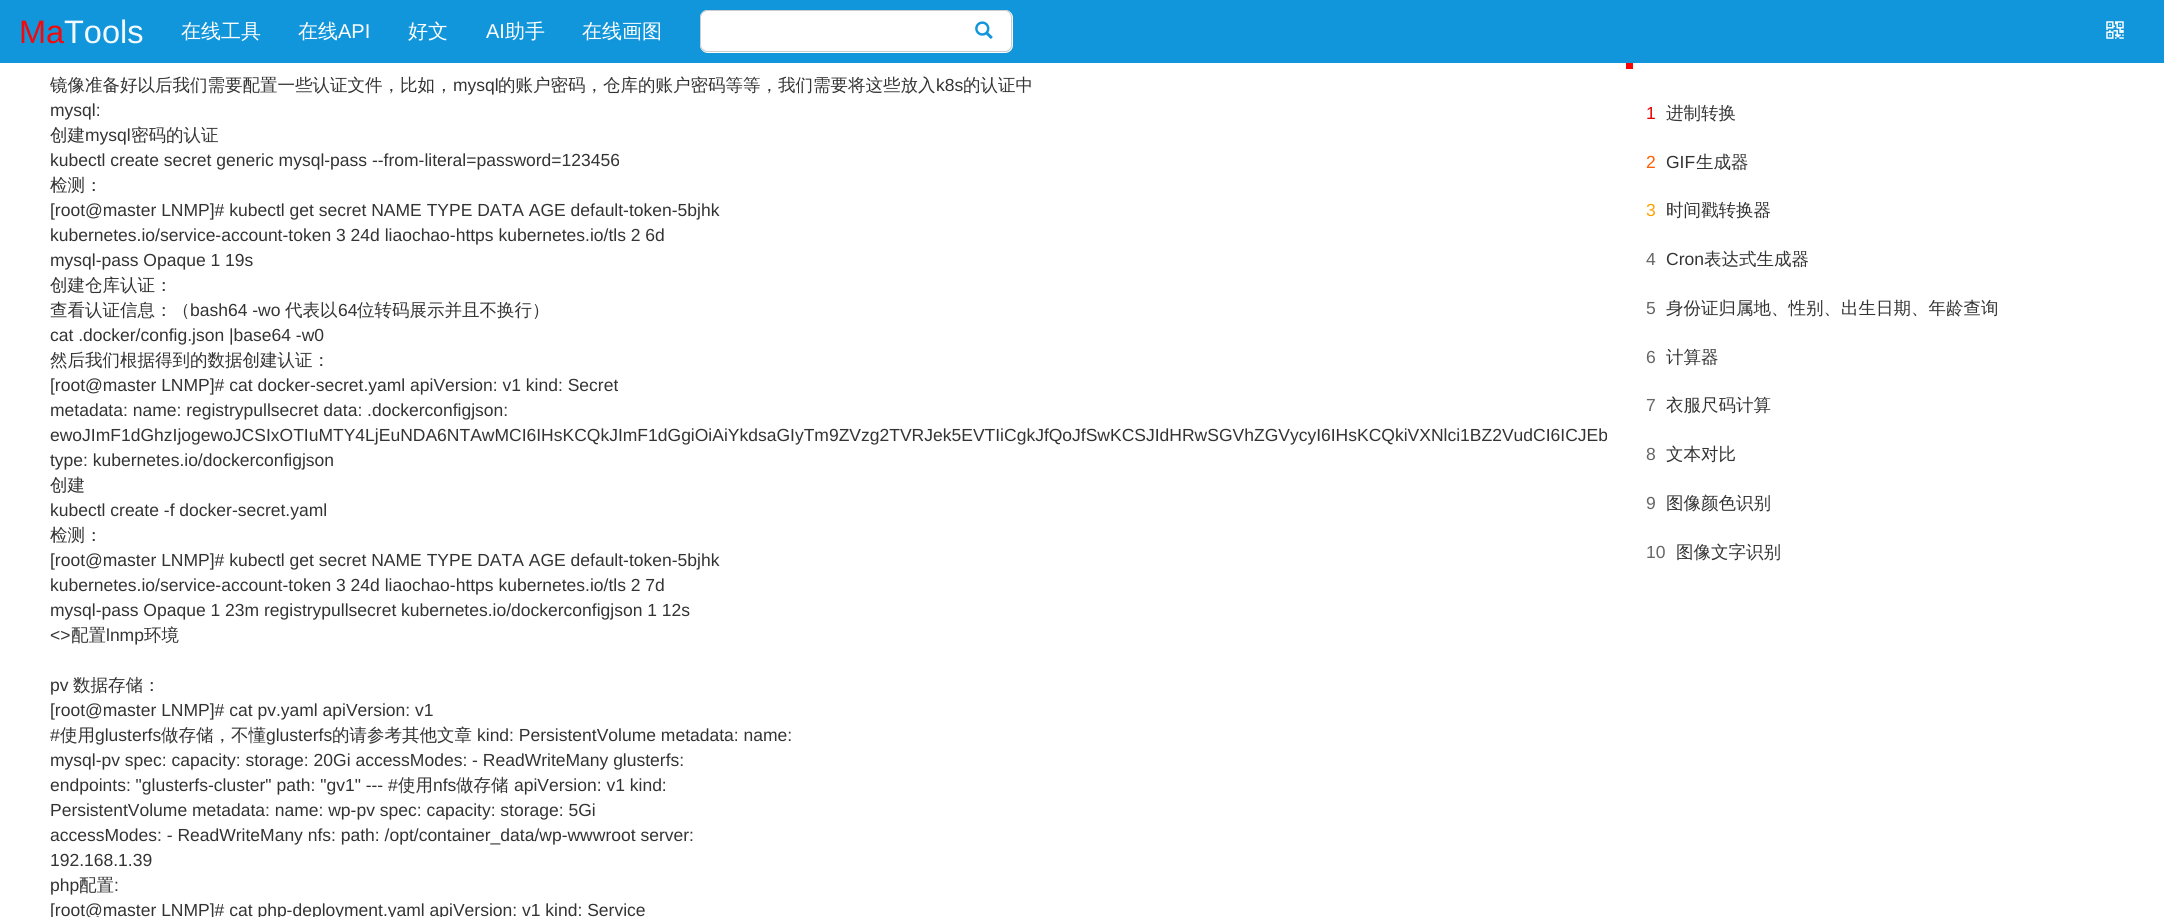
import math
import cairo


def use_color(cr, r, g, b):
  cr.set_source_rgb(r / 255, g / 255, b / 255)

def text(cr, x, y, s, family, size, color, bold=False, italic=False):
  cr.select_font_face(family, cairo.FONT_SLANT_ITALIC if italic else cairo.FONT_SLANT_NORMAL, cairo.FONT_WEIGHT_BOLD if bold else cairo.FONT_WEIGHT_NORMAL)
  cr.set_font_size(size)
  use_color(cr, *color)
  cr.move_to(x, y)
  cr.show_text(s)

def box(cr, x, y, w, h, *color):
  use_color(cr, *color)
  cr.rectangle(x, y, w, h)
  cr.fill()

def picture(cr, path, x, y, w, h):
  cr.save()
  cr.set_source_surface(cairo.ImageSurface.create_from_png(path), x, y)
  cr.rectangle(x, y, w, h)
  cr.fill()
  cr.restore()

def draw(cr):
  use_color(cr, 255, 255, 255)
  cr.paint()
  box(cr, 0, 0, 2164, 63, 18, 150, 219)
  use_color(cr, 255, 255, 255)
  cr.new_path()
  cr.move_to(708, 10)
  cr.line_to(958, 10)
  cr.line_to(958, 53)
  cr.line_to(708, 53)
  cr.curve_to(703.5, 53, 700, 49.5, 700, 45)
  cr.line_to(700, 18)
  cr.curve_to(700, 13.5, 703.5, 10, 708, 10)
  cr.close_path()
  cr.fill()
  use_color(cr, 204, 204, 204)
  cr.set_fill_rule(cairo.FILL_RULE_EVEN_ODD)
  cr.new_path()
  cr.move_to(708, 10)
  cr.line_to(958, 10)
  cr.line_to(958, 52)
  cr.line_to(708, 52)
  cr.curve_to(703, 52, 700, 49, 700, 45)
  cr.line_to(700, 18)
  cr.curve_to(700, 13, 703, 10, 708, 10)
  cr.close_path()
  cr.move_to(708, 11)
  cr.line_to(958, 11)
  cr.line_to(958, 51)
  cr.line_to(708, 51)
  cr.curve_to(704, 51, 701, 48, 701, 45)
  cr.line_to(701, 18)
  cr.curve_to(701, 14, 704, 11, 708, 11)
  cr.close_path()
  cr.fill()
  use_color(cr, 255, 255, 255)
  cr.new_path()
  cr.move_to(956, 10)
  cr.line_to(1005, 10)
  cr.curve_to(1009.5, 10, 1013, 13.5, 1013, 18)
  cr.line_to(1013, 45)
  cr.curve_to(1013, 49.5, 1009.5, 53, 1005, 53)
  cr.line_to(956, 53)
  cr.close_path()
  cr.fill()
  use_color(cr, 204, 204, 204)
  cr.new_path()
  cr.move_to(956, 10)
  cr.line_to(1005, 10)
  cr.curve_to(1009, 10, 1012, 13, 1012, 18)
  cr.line_to(1012, 45)
  cr.curve_to(1012, 49, 1009, 52, 1005, 52)
  cr.line_to(956, 52)
  cr.close_path()
  cr.move_to(956, 11)
  cr.line_to(1005, 11)
  cr.curve_to(1008, 11, 1011, 14, 1011, 18)
  cr.line_to(1011, 45)
  cr.curve_to(1011, 48, 1008, 51, 1005, 51)
  cr.line_to(956, 51)
  cr.close_path()
  cr.fill()
  picture(cr, "img_01.png", 975, 21, 18, 18)
  picture(cr, "img_02.png", 2106, 21, 18, 18)
  box(cr, 1626, 63, 7, 6, 255, 0, 0)
  text(cr, 19, 43, "Ma", "Liberation Sans", 32.5, (243, 8, 11))
  text(cr, 64, 43, "Tools", "Liberation Sans", 32.5, (243, 250, 253))
  text(cr, 181, 38, "在线工具", "WenQuanYi Zen Hei Medium", 20, (255, 255, 255))
  text(cr, 298, 38, "在线", "WenQuanYi Zen Hei Medium", 20, (255, 255, 255))
  text(cr, 338, 38, "API", "Liberation Sans", 20, (255, 255, 255))
  text(cr, 408, 38, "好文", "WenQuanYi Zen Hei Medium", 20, (255, 255, 255))
  text(cr, 486, 38, "AI", "Liberation Sans", 20, (255, 255, 255))
  text(cr, 505, 38, "助手", "WenQuanYi Zen Hei Medium", 20, (255, 255, 255))
  text(cr, 582, 38, "在线画图", "WenQuanYi Zen Hei Medium", 20, (255, 255, 255))
  text(cr, 50, 91, "镜像准备好以后我们需要配置一些认证文件，比如，", "WenQuanYi Zen Hei Medium", 17.5, (51, 51, 51))
  text(cr, 453, 91, "mysql", "Liberation Sans", 17.5, (51, 51, 51))
  text(cr, 498, 91, "的账户密码，仓库的账户密码等等，我们需要将这些放入", "WenQuanYi Zen Hei Medium", 17.5, (51, 51, 51))
  text(cr, 936, 91, "k8s", "Liberation Sans", 17.5, (51, 51, 51))
  text(cr, 963, 91, "的认证中", "WenQuanYi Zen Hei Medium", 17.5, (51, 51, 51))
  text(cr, 50, 116, "mysql:", "Liberation Sans", 17.5, (51, 51, 51))
  text(cr, 50, 141, "创建", "WenQuanYi Zen Hei Medium", 17.5, (51, 51, 51))
  text(cr, 85, 141, "mysql", "Liberation Sans", 17.5, (51, 51, 51))
  text(cr, 131, 141, "密码的认证", "WenQuanYi Zen Hei Medium", 17.5, (51, 51, 51))
  text(cr, 50, 166, "kubectl create secret generic mysql-pass --from-literal=password=123456", "Liberation Sans", 17.5, (51, 51, 51))
  text(cr, 50, 191, "检测：", "WenQuanYi Zen Hei Medium", 17.5, (51, 51, 51))
  text(cr, 50, 216, "[root@master LNMP]# kubectl get secret NAME TYPE DATA AGE default-token-5bjhk", "Liberation Sans", 17.5, (51, 51, 51))
  text(cr, 50, 241, "kubernetes.io/service-account-token 3 24d liaochao-https kubernetes.io/tls 2 6d", "Liberation Sans", 17.5, (51, 51, 51))
  text(cr, 50, 266, "mysql-pass Opaque 1 19s", "Liberation Sans", 17.5, (51, 51, 51))
  text(cr, 50, 291, "创建仓库认证：", "WenQuanYi Zen Hei Medium", 17.5, (51, 51, 51))
  text(cr, 50, 316, "查看认证信息：（", "WenQuanYi Zen Hei Medium", 17.5, (51, 51, 51))
  text(cr, 190, 316, "bash64 -wo", "Liberation Sans", 17.5, (51, 51, 51))
  text(cr, 285, 316, "代表以", "WenQuanYi Zen Hei Medium", 17.5, (51, 51, 51))
  text(cr, 338, 316, "64", "Liberation Sans", 17.5, (51, 51, 51))
  text(cr, 357, 316, "位转码展示并且不换行）", "WenQuanYi Zen Hei Medium", 17.5, (51, 51, 51))
  text(cr, 50, 341, "cat .docker/config.json |base64 -w0", "Liberation Sans", 17.5, (51, 51, 51))
  text(cr, 50, 366, "然后我们根据得到的数据创建认证：", "WenQuanYi Zen Hei Medium", 17.5, (51, 51, 51))
  text(cr, 50, 391, "[root@master LNMP]# cat docker-secret.yaml apiVersion: v1 kind: Secret", "Liberation Sans", 17.5, (51, 51, 51))
  text(cr, 50, 416, "metadata: name: registrypullsecret data: .dockerconfigjson:", "Liberation Sans", 17.5, (51, 51, 51))
  text(cr, 50, 441, "ewoJImF1dGhzIjogewoJCSIxOTIuMTY4LjEuNDA6NTAwMCI6IHsKCQkJImF1dGgiOiAiYkdsaGIyTm9ZVzg2TVRJek5EVTIiCgkJfQoJfSwKCSJIdHRwSGVhZGVycyI6IHsKCQkiVXNlci1BZ2VudCI6ICJEb", "Liberation Sans", 17.5, (51, 51, 51))
  text(cr, 50, 466, "type: kubernetes.io/dockerconfigjson", "Liberation Sans", 17.5, (51, 51, 51))
  text(cr, 50, 491, "创建", "WenQuanYi Zen Hei Medium", 17.5, (51, 51, 51))
  text(cr, 50, 516, "kubectl create -f docker-secret.yaml", "Liberation Sans", 17.5, (51, 51, 51))
  text(cr, 50, 541, "检测：", "WenQuanYi Zen Hei Medium", 17.5, (51, 51, 51))
  text(cr, 50, 566, "[root@master LNMP]# kubectl get secret NAME TYPE DATA AGE default-token-5bjhk", "Liberation Sans", 17.5, (51, 51, 51))
  text(cr, 50, 591, "kubernetes.io/service-account-token 3 24d liaochao-https kubernetes.io/tls 2 7d", "Liberation Sans", 17.5, (51, 51, 51))
  text(cr, 50, 616, "mysql-pass Opaque 1 23m registrypullsecret kubernetes.io/dockerconfigjson 1 12s", "Liberation Sans", 17.5, (51, 51, 51))
  text(cr, 50, 641, "<>", "Liberation Sans", 17.5, (51, 51, 51))
  text(cr, 71, 641, "配置", "WenQuanYi Zen Hei Medium", 17.5, (51, 51, 51))
  text(cr, 106, 641, "lnmp", "Liberation Sans", 17.5, (51, 51, 51))
  text(cr, 144, 641, "环境", "WenQuanYi Zen Hei Medium", 17.5, (51, 51, 51))
  text(cr, 50, 691, "pv", "Liberation Sans", 17.5, (51, 51, 51))
  text(cr, 73, 691, "数据存储：", "WenQuanYi Zen Hei Medium", 17.5, (51, 51, 51))
  text(cr, 50, 716, "[root@master LNMP]# cat pv.yaml apiVersion: v1", "Liberation Sans", 17.5, (51, 51, 51))
  text(cr, 50, 741, "#", "Liberation Sans", 17.5, (51, 51, 51))
  text(cr, 60, 741, "使用", "WenQuanYi Zen Hei Medium", 17.5, (51, 51, 51))
  text(cr, 95, 741, "glusterfs", "Liberation Sans", 17.5, (51, 51, 51))
  text(cr, 161, 741, "做存储，不懂", "WenQuanYi Zen Hei Medium", 17.5, (51, 51, 51))
  text(cr, 266, 741, "glusterfs", "Liberation Sans", 17.5, (51, 51, 51))
  text(cr, 332, 741, "的请参考其他文章", "WenQuanYi Zen Hei Medium", 17.5, (51, 51, 51))
  text(cr, 477, 741, "kind: PersistentVolume metadata: name:", "Liberation Sans", 17.5, (51, 51, 51))
  text(cr, 50, 766, "mysql-pv spec: capacity: storage: 20Gi accessModes: - ReadWriteMany glusterfs:", "Liberation Sans", 17.5, (51, 51, 51))
  text(cr, 50, 791, "endpoints: \"glusterfs-cluster\" path: \"gv1\" --- #", "Liberation Sans", 17.5, (51, 51, 51))
  text(cr, 398, 791, "使用", "WenQuanYi Zen Hei Medium", 17.5, (51, 51, 51))
  text(cr, 433, 791, "nfs", "Liberation Sans", 17.5, (51, 51, 51))
  text(cr, 456, 791, "做存储", "WenQuanYi Zen Hei Medium", 17.5, (51, 51, 51))
  text(cr, 514, 791, "apiVersion: v1 kind:", "Liberation Sans", 17.5, (51, 51, 51))
  text(cr, 50, 816, "PersistentVolume metadata: name: wp-pv spec: capacity: storage: 5Gi", "Liberation Sans", 17.5, (51, 51, 51))
  text(cr, 50, 841, "accessModes: - ReadWriteMany nfs: path: /opt/container_data/wp-wwwroot server:", "Liberation Sans", 17.5, (51, 51, 51))
  text(cr, 50, 866, "192.168.1.39", "Liberation Sans", 17.5, (51, 51, 51))
  text(cr, 50, 891, "php", "Liberation Sans", 17.5, (51, 51, 51))
  text(cr, 79, 891, "配置", "WenQuanYi Zen Hei Medium", 17.5, (51, 51, 51))
  text(cr, 114, 891, ":", "Liberation Sans", 17.5, (51, 51, 51))
  text(cr, 50, 916, "[root@master LNMP]# cat php-deployment.yaml apiVersion: v1 kind: Service", "Liberation Sans", 17.5, (51, 51, 51))
  text(cr, 1646, 119, "1", "Liberation Sans", 17.5, (235, 0, 0))
  text(cr, 1666, 119, "进制转换", "WenQuanYi Zen Hei Medium", 17.5, (51, 51, 51))
  text(cr, 1646, 168, "2", "Liberation Sans", 17.5, (255, 94, 0))
  text(cr, 1666, 168, "GIF", "Liberation Sans", 17.5, (51, 51, 51))
  text(cr, 1696, 168, "生成器", "WenQuanYi Zen Hei Medium", 17.5, (51, 51, 51))
  text(cr, 1646, 216, "3", "Liberation Sans", 17.5, (255, 162, 0))
  text(cr, 1666, 216, "时间戳转换器", "WenQuanYi Zen Hei Medium", 17.5, (51, 51, 51))
  text(cr, 1646, 265, "4", "Liberation Sans", 17.5, (102, 102, 102))
  text(cr, 1666, 265, "Cron", "Liberation Sans", 17.5, (51, 51, 51))
  text(cr, 1704, 265, "表达式生成器", "WenQuanYi Zen Hei Medium", 17.5, (51, 51, 51))
  text(cr, 1646, 314, "5", "Liberation Sans", 17.5, (102, 102, 102))
  text(cr, 1666, 314, "身份证归属地、性别、出生日期、年龄查询", "WenQuanYi Zen Hei Medium", 17.5, (51, 51, 51))
  text(cr, 1646, 363, "6", "Liberation Sans", 17.5, (102, 102, 102))
  text(cr, 1666, 363, "计算器", "WenQuanYi Zen Hei Medium", 17.5, (51, 51, 51))
  text(cr, 1646, 411, "7", "Liberation Sans", 17.5, (102, 102, 102))
  text(cr, 1666, 411, "衣服尺码计算", "WenQuanYi Zen Hei Medium", 17.5, (51, 51, 51))
  text(cr, 1646, 460, "8", "Liberation Sans", 17.5, (102, 102, 102))
  text(cr, 1666, 460, "文本对比", "WenQuanYi Zen Hei Medium", 17.5, (51, 51, 51))
  text(cr, 1646, 509, "9", "Liberation Sans", 17.5, (102, 102, 102))
  text(cr, 1666, 509, "图像颜色识别", "WenQuanYi Zen Hei Medium", 17.5, (51, 51, 51))
  text(cr, 1646, 558, "10", "Liberation Sans", 17.5, (102, 102, 102))
  text(cr, 1676, 558, "图像文字识别", "WenQuanYi Zen Hei Medium", 17.5, (51, 51, 51))


surface = cairo.ImageSurface(cairo.FORMAT_RGB24, 2164, 917)
cr = cairo.Context(surface)
options = cairo.FontOptions()
options.set_hint_metrics(cairo.HINT_METRICS_OFF)
options.set_hint_style(cairo.HINT_STYLE_NONE)
cr.set_font_options(options)
cr.set_miter_limit(4)
draw(cr)
surface.write_to_png("out.png")
